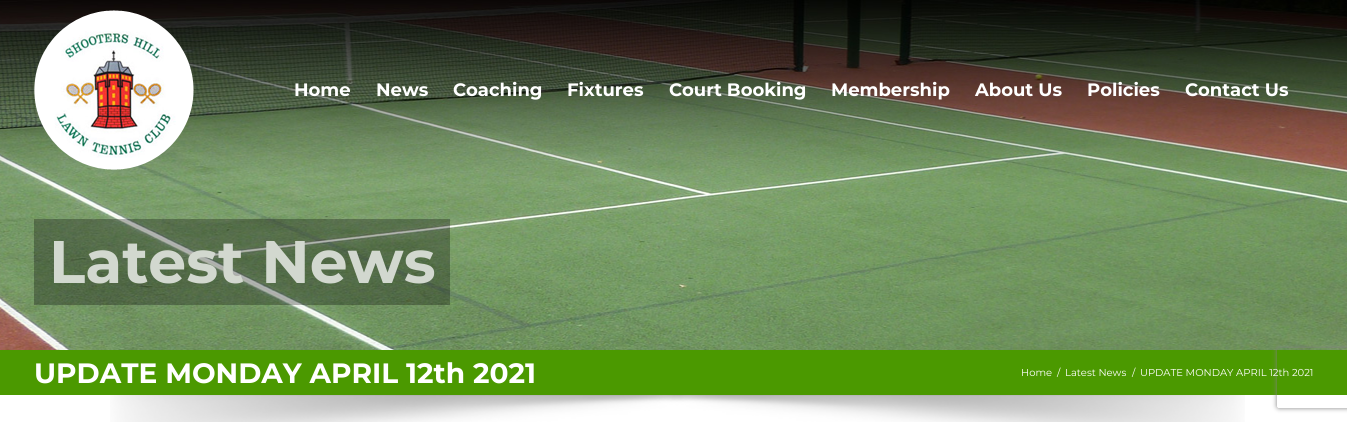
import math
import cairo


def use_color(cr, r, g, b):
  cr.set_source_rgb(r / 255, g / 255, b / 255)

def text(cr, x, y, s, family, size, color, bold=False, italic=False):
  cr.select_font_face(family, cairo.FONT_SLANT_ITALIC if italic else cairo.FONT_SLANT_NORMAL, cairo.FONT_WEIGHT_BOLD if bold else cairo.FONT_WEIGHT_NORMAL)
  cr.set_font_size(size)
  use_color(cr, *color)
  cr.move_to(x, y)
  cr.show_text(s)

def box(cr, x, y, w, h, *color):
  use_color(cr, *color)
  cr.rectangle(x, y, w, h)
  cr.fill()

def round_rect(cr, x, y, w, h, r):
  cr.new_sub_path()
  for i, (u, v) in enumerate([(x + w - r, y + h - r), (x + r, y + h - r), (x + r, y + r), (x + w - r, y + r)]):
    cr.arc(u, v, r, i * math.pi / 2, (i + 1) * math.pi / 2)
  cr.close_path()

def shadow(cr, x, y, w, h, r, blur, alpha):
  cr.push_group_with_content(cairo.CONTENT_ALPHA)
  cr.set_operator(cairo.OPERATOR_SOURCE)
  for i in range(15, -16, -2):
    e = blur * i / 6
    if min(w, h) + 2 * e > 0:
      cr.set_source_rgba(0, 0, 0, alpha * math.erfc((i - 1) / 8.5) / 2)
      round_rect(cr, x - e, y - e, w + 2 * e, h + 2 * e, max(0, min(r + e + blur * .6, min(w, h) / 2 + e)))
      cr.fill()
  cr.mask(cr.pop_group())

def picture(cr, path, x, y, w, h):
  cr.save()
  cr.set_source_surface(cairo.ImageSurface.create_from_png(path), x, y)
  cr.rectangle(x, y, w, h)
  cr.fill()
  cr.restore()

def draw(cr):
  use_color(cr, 255, 255, 255)
  cr.paint()
  picture(cr, "img_02.png", 0, 0, 1347, 350)
  picture(cr, "img_01.png", 34, 10, 160, 160)
  cr.set_source_rgba(0, 0, 0, 0.29)
  cr.rectangle(34, 219, 416, 86)
  cr.fill()
  box(cr, 0, 350, 1347, 45, 75, 153, 0)
  picture(cr, "img_03.png", 110, 395, 1135, 27)
  cr.save()
  cr.set_fill_rule(cairo.FILL_RULE_EVEN_ODD)
  cr.new_path()
  cr.move_to(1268, 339)
  cr.line_to(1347, 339)
  cr.line_to(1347, 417)
  cr.line_to(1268, 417)
  cr.close_path()
  cr.move_to(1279, 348)
  cr.line_to(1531, 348)
  cr.curve_to(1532, 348, 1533, 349, 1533, 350)
  cr.line_to(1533, 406)
  cr.curve_to(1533, 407, 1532, 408, 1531, 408)
  cr.line_to(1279, 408)
  cr.curve_to(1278, 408, 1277, 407, 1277, 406)
  cr.line_to(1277, 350)
  cr.curve_to(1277, 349, 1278, 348, 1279, 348)
  cr.close_path()
  cr.clip()
  use_color(cr, 128, 128, 128)
  shadow(cr, 1277, 348, 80, 60, 2, 2.5, 1)
  cr.restore()
  text(cr, 294, 96, "Home", "Montserrat", 18, (255, 255, 255), bold=True)
  text(cr, 376, 96, "News", "Montserrat", 18, (255, 255, 255), bold=True)
  text(cr, 453, 96, "Coaching", "Montserrat", 18, (255, 255, 255), bold=True)
  text(cr, 567, 96, "Fixtures", "Montserrat", 18, (255, 255, 255), bold=True)
  text(cr, 669, 96, "Court Booking", "Montserrat", 18, (255, 255, 255), bold=True)
  text(cr, 831, 96, "Membership", "Montserrat", 18, (255, 255, 255), bold=True)
  text(cr, 975, 96, "About Us", "Montserrat", 18, (255, 255, 255), bold=True)
  text(cr, 1087, 96, "Policies", "Montserrat", 18, (255, 255, 255), bold=True)
  text(cr, 1185, 96, "Contact Us", "Montserrat", 18, (255, 255, 255), bold=True)
  text(cr, 49, 283, "Latest News", "Montserrat", 60, (210, 216, 207), bold=True)
  text(cr, 34, 383, "UPDATE MONDAY APRIL 12th 2021", "Montserrat", 28, (255, 255, 255), bold=True)
  text(cr, 1021, 376, "Home", "Montserrat", 10, (255, 255, 255))
  text(cr, 1057, 376, "/", "Montserrat", 10, (255, 255, 255))
  text(cr, 1065, 376, "Latest News", "Montserrat", 10, (255, 255, 255))
  text(cr, 1132, 376, "/", "Montserrat", 10, (255, 255, 255))
  text(cr, 1140, 376, "UPDATE MONDAY APRIL 12th 2021", "Montserrat", 10, (255, 255, 255))


surface = cairo.ImageSurface(cairo.FORMAT_RGB24, 1347, 422)
cr = cairo.Context(surface)
options = cairo.FontOptions()
options.set_hint_metrics(cairo.HINT_METRICS_OFF)
options.set_hint_style(cairo.HINT_STYLE_NONE)
cr.set_font_options(options)
cr.set_miter_limit(4)
draw(cr)
surface.write_to_png("out.png")
